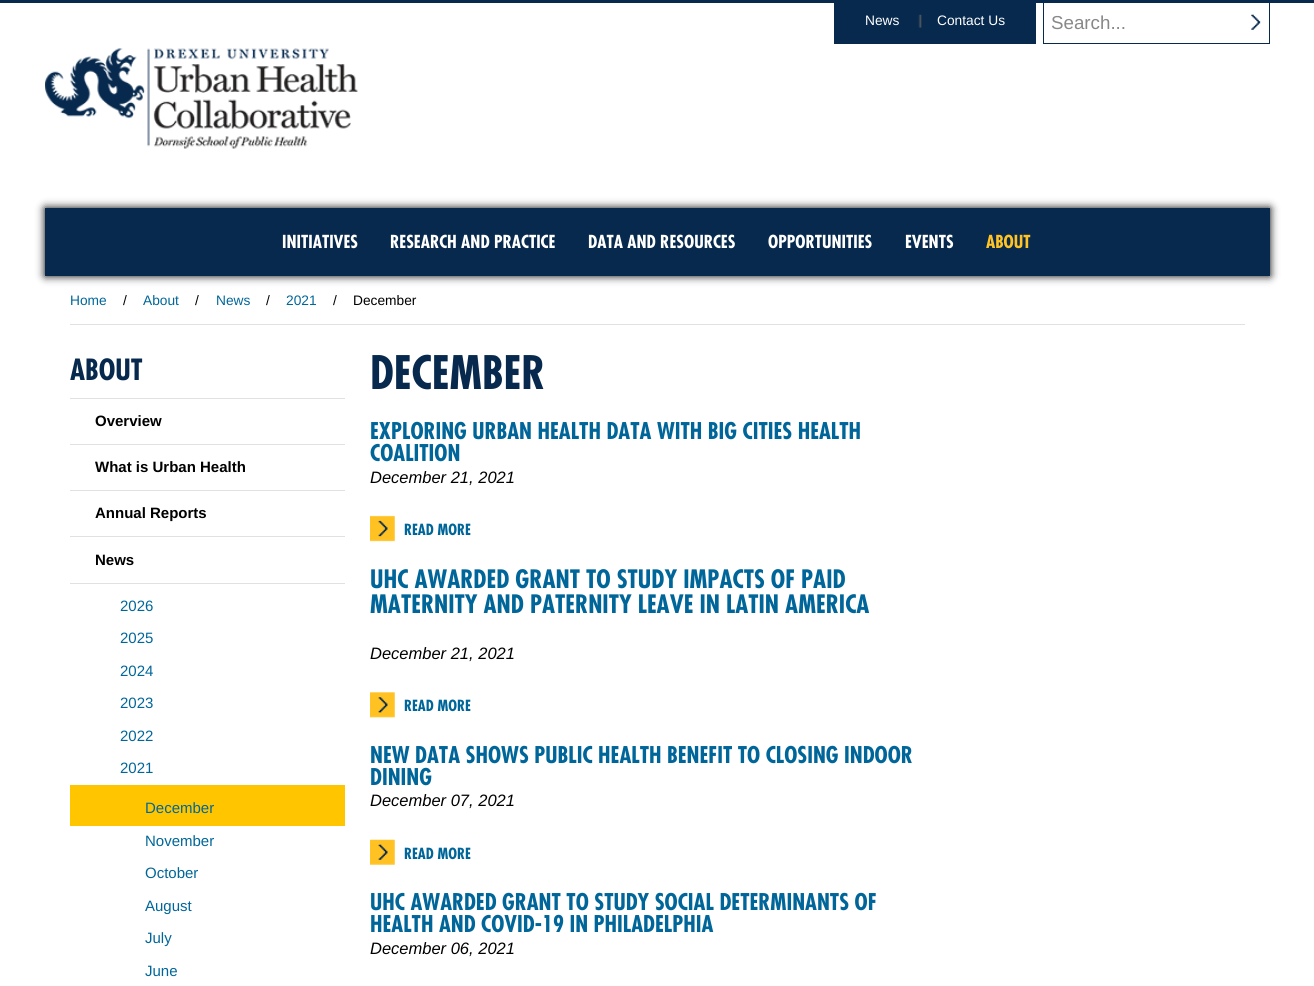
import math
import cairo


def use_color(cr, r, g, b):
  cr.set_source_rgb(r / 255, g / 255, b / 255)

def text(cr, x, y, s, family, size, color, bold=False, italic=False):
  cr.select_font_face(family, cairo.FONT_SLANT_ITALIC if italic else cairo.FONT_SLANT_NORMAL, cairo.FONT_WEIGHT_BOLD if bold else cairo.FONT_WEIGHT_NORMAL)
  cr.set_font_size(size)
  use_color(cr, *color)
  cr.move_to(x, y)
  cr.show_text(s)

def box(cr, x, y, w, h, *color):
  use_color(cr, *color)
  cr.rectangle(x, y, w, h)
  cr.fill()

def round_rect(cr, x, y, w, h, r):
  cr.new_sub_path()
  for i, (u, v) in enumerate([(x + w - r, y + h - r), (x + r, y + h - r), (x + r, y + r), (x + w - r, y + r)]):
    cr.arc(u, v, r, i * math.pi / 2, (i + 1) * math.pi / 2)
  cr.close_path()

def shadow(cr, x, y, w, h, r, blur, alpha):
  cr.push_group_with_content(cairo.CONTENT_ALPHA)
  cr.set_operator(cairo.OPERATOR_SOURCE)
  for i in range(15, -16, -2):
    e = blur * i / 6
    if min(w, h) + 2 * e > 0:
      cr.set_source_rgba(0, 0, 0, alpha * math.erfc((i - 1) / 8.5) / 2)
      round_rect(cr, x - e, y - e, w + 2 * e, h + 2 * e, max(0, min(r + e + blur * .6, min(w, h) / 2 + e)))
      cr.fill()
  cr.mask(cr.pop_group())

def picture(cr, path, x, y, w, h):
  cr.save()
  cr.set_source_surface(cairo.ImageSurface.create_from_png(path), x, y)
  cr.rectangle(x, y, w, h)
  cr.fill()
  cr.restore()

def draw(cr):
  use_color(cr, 255, 255, 255)
  cr.paint()
  box(cr, 0, 0, 1314, 3, 7, 41, 77)
  box(cr, 834, 3, 202, 41, 7, 41, 77)
  picture(cr, "img_01.png", 918, 14, 4, 14)
  box(cr, 1043, 3, 227, 41, 7, 41, 77)
  box(cr, 1044, 3, 225, 40, 255, 255, 255)
  picture(cr, "img_02.png", 1251, 14, 10, 16)
  picture(cr, "img_03.png", 45, 48, 313, 101)
  use_color(cr, 0, 0, 0)
  shadow(cr, 45, 208, 1225, 68, 0, 4.5, 1)
  box(cr, 45, 208, 1225, 68, 7, 41, 77)
  box(cr, 70, 324, 1175, 1, 225, 225, 224)
  box(cr, 70, 398, 275, 1, 225, 225, 224)
  box(cr, 70, 444, 275, 1, 225, 225, 224)
  box(cr, 70, 490, 275, 1, 225, 225, 224)
  box(cr, 70, 536, 275, 1, 225, 225, 224)
  box(cr, 70, 583, 275, 1, 225, 225, 224)
  box(cr, 70, 785, 275, 41, 255, 198, 0)
  picture(cr, "img_04.png", 370, 515, 25, 27)
  picture(cr, "img_05.png", 370, 692, 25, 26)
  picture(cr, "img_06.png", 370, 839, 25, 26)
  text(cr, 865, 25, "News", "Liberation Sans", 13.75, (255, 255, 255))
  text(cr, 937, 25, "Contact Us", "Liberation Sans", 13.75, (255, 255, 255))
  text(cr, 1051, 29, "Search...", "Liberation Sans", 18.75, (136, 136, 136))
  text(cr, 282, 248, "INITIATIVES", "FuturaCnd", 17.5, (255, 255, 255), bold=True)
  text(cr, 390, 248, "RESEARCH AND PRACTICE", "FuturaCnd", 17.5, (255, 255, 255), bold=True)
  text(cr, 588, 248, "DATA AND RESOURCES", "FuturaCnd", 17.5, (255, 255, 255), bold=True)
  text(cr, 768, 248, "OPPORTUNITIES", "FuturaCnd", 17.5, (255, 255, 255), bold=True)
  text(cr, 905, 248, "EVENTS", "FuturaCnd", 17.5, (255, 255, 255), bold=True)
  text(cr, 986, 248, "ABOUT", "FuturaCnd", 17.5, (255, 195, 37), bold=True)
  text(cr, 70, 305, "Home", "Liberation Sans", 13.75, (0, 102, 153))
  text(cr, 123, 305, "/", "Liberation Sans", 13.75, (0, 0, 0))
  text(cr, 143, 305, "About", "Liberation Sans", 13.75, (0, 102, 153))
  text(cr, 195, 305, "/", "Liberation Sans", 13.75, (0, 0, 0))
  text(cr, 216, 305, "News", "Liberation Sans", 13.75, (0, 102, 153))
  text(cr, 266, 305, "/", "Liberation Sans", 13.75, (0, 0, 0))
  text(cr, 286, 305, "2021", "Liberation Sans", 13.75, (0, 102, 153))
  text(cr, 333, 305, "/", "Liberation Sans", 13.75, (0, 0, 0))
  text(cr, 353, 305, "December", "Liberation Sans", 13.75, (0, 0, 0))
  text(cr, 70, 380, "ABOUT", "FuturaCnd", 28.5, (7, 41, 77), bold=True)
  text(cr, 95, 426, "Overview", "Liberation Sans", 15, (0, 0, 0), bold=True)
  text(cr, 95, 472, "What is Urban Health", "Liberation Sans", 15, (0, 0, 0), bold=True)
  text(cr, 95, 518, "Annual Reports", "Liberation Sans", 15, (0, 0, 0), bold=True)
  text(cr, 95, 565, "News", "Liberation Sans", 15, (0, 0, 0), bold=True)
  text(cr, 120, 611, "2026", "Liberation Sans", 15, (0, 102, 153))
  text(cr, 120, 643, "2025", "Liberation Sans", 15, (0, 102, 153))
  text(cr, 120, 676, "2024", "Liberation Sans", 15, (0, 102, 153))
  text(cr, 120, 708, "2023", "Liberation Sans", 15, (0, 102, 153))
  text(cr, 120, 741, "2022", "Liberation Sans", 15, (0, 102, 153))
  text(cr, 120, 773, "2021", "Liberation Sans", 15, (0, 102, 153))
  text(cr, 145, 813, "December", "Liberation Sans", 15, (0, 102, 153))
  text(cr, 145, 846, "November", "Liberation Sans", 15, (0, 102, 153))
  text(cr, 145, 878, "October", "Liberation Sans", 15, (0, 102, 153))
  text(cr, 145, 911, "August", "Liberation Sans", 15, (0, 102, 153))
  text(cr, 145, 943, "July", "Liberation Sans", 15, (0, 102, 153))
  text(cr, 145, 976, "June", "Liberation Sans", 15, (0, 102, 153))
  text(cr, 370, 389, "DECEMBER", "FuturaCnd", 45, (7, 41, 77), bold=True)
  text(cr, 370, 439, "EXPLORING URBAN HEALTH DATA WITH BIG CITIES HEALTH", "FuturaCnd", 22.5, (0, 102, 153), bold=True)
  text(cr, 370, 461, "COALITION", "FuturaCnd", 22.5, (0, 102, 153), bold=True)
  text(cr, 370, 483, "December 21, 2021", "Liberation Sans", 16.5, (0, 0, 0), italic=True)
  text(cr, 404, 535, "READ MORE", "FuturaCnd", 15, (0, 102, 153), bold=True)
  text(cr, 370, 588, "UHC AWARDED GRANT TO STUDY IMPACTS OF PAID", "FuturaCnd", 24.75, (0, 102, 153), bold=True)
  text(cr, 370, 613, "MATERNITY AND PATERNITY LEAVE IN LATIN AMERICA", "FuturaCnd", 24.75, (0, 102, 153), bold=True)
  text(cr, 370, 659, "December 21, 2021", "Liberation Sans", 16.5, (0, 0, 0), italic=True)
  text(cr, 404, 711, "READ MORE", "FuturaCnd", 15, (0, 102, 153), bold=True)
  text(cr, 370, 763, "NEW DATA SHOWS PUBLIC HEALTH BENEFIT TO CLOSING INDOOR", "FuturaCnd", 22.5, (0, 102, 153), bold=True)
  text(cr, 370, 785, "DINING", "FuturaCnd", 22.5, (0, 102, 153), bold=True)
  text(cr, 370, 806, "December 07, 2021", "Liberation Sans", 16.5, (0, 0, 0), italic=True)
  text(cr, 404, 859, "READ MORE", "FuturaCnd", 15, (0, 102, 153), bold=True)
  text(cr, 370, 910, "UHC AWARDED GRANT TO STUDY SOCIAL DETERMINANTS OF", "FuturaCnd", 22.5, (0, 102, 153), bold=True)
  text(cr, 370, 932, "HEALTH AND COVID-19 IN PHILADELPHIA", "FuturaCnd", 22.5, (0, 102, 153), bold=True)
  text(cr, 370, 954, "December 06, 2021", "Liberation Sans", 16.5, (0, 0, 0), italic=True)


surface = cairo.ImageSurface(cairo.FORMAT_RGB24, 1314, 986)
cr = cairo.Context(surface)
options = cairo.FontOptions()
options.set_hint_metrics(cairo.HINT_METRICS_OFF)
options.set_hint_style(cairo.HINT_STYLE_NONE)
cr.set_font_options(options)
cr.set_miter_limit(4)
draw(cr)
surface.write_to_png("out.png")
